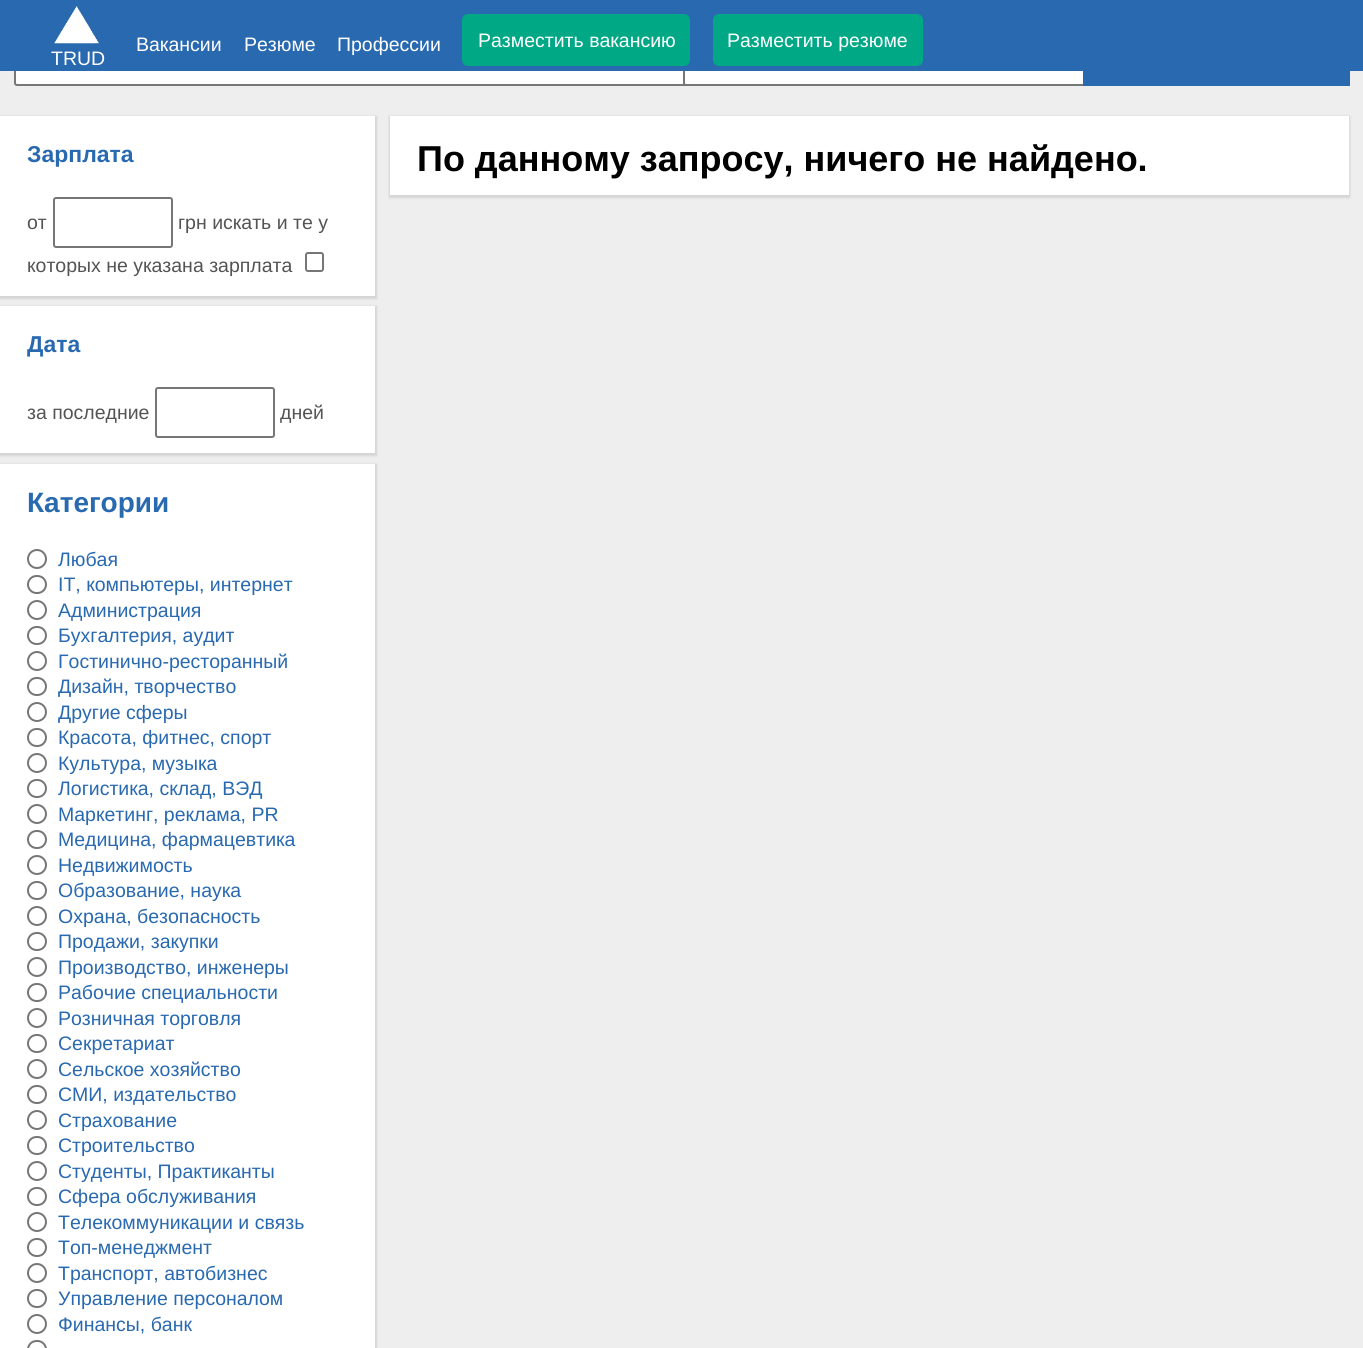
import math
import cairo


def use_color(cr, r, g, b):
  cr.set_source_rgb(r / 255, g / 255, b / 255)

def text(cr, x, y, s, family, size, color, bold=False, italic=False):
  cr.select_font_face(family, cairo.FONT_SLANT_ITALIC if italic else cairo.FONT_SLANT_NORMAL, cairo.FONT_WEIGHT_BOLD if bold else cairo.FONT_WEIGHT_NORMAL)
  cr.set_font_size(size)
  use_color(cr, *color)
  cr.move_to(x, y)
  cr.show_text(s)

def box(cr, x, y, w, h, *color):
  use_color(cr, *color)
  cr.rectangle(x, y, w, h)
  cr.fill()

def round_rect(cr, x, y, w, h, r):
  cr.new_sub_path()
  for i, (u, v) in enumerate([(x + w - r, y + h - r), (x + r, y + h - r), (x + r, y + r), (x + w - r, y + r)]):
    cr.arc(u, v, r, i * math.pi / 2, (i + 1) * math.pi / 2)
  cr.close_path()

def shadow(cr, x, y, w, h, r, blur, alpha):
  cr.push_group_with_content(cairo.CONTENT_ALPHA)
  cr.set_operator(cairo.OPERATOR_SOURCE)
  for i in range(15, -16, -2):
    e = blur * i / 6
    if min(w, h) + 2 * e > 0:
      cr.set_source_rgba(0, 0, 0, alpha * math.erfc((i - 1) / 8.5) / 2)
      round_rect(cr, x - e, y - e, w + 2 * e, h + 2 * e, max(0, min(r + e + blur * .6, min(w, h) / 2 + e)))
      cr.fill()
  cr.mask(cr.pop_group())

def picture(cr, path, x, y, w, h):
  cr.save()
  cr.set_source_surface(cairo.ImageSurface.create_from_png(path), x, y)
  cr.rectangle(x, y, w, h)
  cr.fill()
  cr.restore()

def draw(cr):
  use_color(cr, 238, 238, 238)
  cr.paint()
  use_color(cr, 255, 255, 255)
  round_rect(cr, 15, 6, 688, 79, 2)
  cr.fill_preserve()
  use_color(cr, 118, 118, 118)
  cr.stroke()
  use_color(cr, 255, 255, 255)
  round_rect(cr, 684, 6, 419, 79, 2)
  cr.fill_preserve()
  use_color(cr, 118, 118, 118)
  cr.stroke()
  box(cr, 1083, 71, 267, 15, 41, 105, 176)
  box(cr, 0, 0, 1363, 71, 41, 105, 176)
  use_color(cr, 0, 168, 133)
  round_rect(cr, 462, 14, 228, 52, 6)
  cr.fill()
  round_rect(cr, 713, 14, 210, 52, 6)
  cr.fill()
  picture(cr, "img_01.png", 54, 6, 45, 38)
  use_color(cr, 153, 153, 153)
  shadow(cr, -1, 116, 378, 183, 0, 1, 0.3)
  box(cr, 0, 116, 375, 180, 255, 255, 255)
  round_rect(cr, 54, 198, 118, 49, 2)
  use_color(cr, 118, 118, 118)
  cr.stroke()
  round_rect(cr, 306, 253, 17, 18, 2)
  cr.stroke()
  use_color(cr, 153, 153, 153)
  shadow(cr, -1, 306, 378, 150, 0, 1, 0.3)
  box(cr, 0, 306, 375, 147, 255, 255, 255)
  round_rect(cr, 156, 388, 118, 49, 2)
  use_color(cr, 118, 118, 118)
  cr.stroke()
  use_color(cr, 153, 153, 153)
  shadow(cr, -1, 464, 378, 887, 0, 1, 0.3)
  box(cr, 0, 464, 375, 884, 255, 255, 255)
  cr.arc(37, 559, 9, 0, 2 * math.pi)
  use_color(cr, 118, 118, 118)
  cr.stroke()
  round_rect(cr, 28, 576, 18, 17, 8.5)
  cr.stroke()
  cr.arc(37, 610, 9, 0, 2 * math.pi)
  cr.stroke()
  round_rect(cr, 28, 627, 18, 17, 8.5)
  cr.stroke()
  cr.arc(37, 661, 9, 0, 2 * math.pi)
  cr.stroke()
  round_rect(cr, 28, 678, 18, 17, 8.5)
  cr.stroke()
  cr.arc(37, 712, 9, 0, 2 * math.pi)
  cr.stroke()
  round_rect(cr, 28, 729, 18, 17, 8.5)
  cr.stroke()
  cr.arc(37, 763, 9, 0, 2 * math.pi)
  cr.stroke()
  round_rect(cr, 28, 780, 18, 17, 8.5)
  cr.stroke()
  cr.arc(37, 814, 9, 0, 2 * math.pi)
  cr.stroke()
  round_rect(cr, 28, 831, 18, 17, 8.5)
  cr.stroke()
  cr.arc(37, 865, 9, 0, 2 * math.pi)
  cr.stroke()
  round_rect(cr, 28, 882, 18, 17, 8.5)
  cr.stroke()
  cr.arc(37, 916, 9, 0, 2 * math.pi)
  cr.stroke()
  round_rect(cr, 28, 933, 18, 17, 8.5)
  cr.stroke()
  cr.arc(37, 967, 9, 0, 2 * math.pi)
  cr.stroke()
  round_rect(cr, 28, 984, 18, 17, 8.5)
  cr.stroke()
  cr.arc(37, 1018, 9, 0, 2 * math.pi)
  cr.stroke()
  round_rect(cr, 28, 1035, 18, 17, 8.5)
  cr.stroke()
  cr.arc(37, 1069, 9, 0, 2 * math.pi)
  cr.stroke()
  round_rect(cr, 28, 1086, 18, 17, 8.5)
  cr.stroke()
  cr.arc(37, 1120, 9, 0, 2 * math.pi)
  cr.stroke()
  round_rect(cr, 28, 1137, 18, 17, 8.5)
  cr.stroke()
  cr.arc(37, 1171, 9, 0, 2 * math.pi)
  cr.stroke()
  round_rect(cr, 28, 1188, 18, 17, 8.5)
  cr.stroke()
  cr.arc(37, 1222, 9, 0, 2 * math.pi)
  cr.stroke()
  round_rect(cr, 28, 1239, 18, 17, 8.5)
  cr.stroke()
  cr.arc(37, 1273, 9, 0, 2 * math.pi)
  cr.stroke()
  round_rect(cr, 28, 1290, 18, 17, 8.5)
  cr.stroke()
  cr.arc(37, 1324, 9, 0, 2 * math.pi)
  cr.stroke()
  round_rect(cr, 28, 1341, 18, 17, 8.5)
  cr.stroke()
  use_color(cr, 153, 153, 153)
  shadow(cr, 389, 116, 961, 82, 0, 1, 0.3)
  box(cr, 390, 116, 959, 79, 255, 255, 255)
  text(cr, 136, 51, "Вакансии", "Liberation Sans", 19.5, (255, 255, 255))
  text(cr, 244, 51, "Резюме", "Liberation Sans", 19.5, (255, 255, 255))
  text(cr, 337, 51, "Профессии", "Liberation Sans", 19.5, (255, 255, 255))
  text(cr, 478, 47, "Разместить вакансию", "Liberation Sans", 19.5, (255, 255, 255))
  text(cr, 727, 47, "Разместить резюме", "Liberation Sans", 19.5, (255, 255, 255))
  text(cr, 51, 65, "TRUD", "Liberation Sans", 19.5, (255, 255, 255))
  text(cr, 27, 162, "Зарплата", "Liberation Sans", 23, (41, 105, 176), bold=True)
  text(cr, 27, 229, "от", "Liberation Sans", 19.5, (84, 84, 84))
  text(cr, 178, 229, "грн искать и те у", "Liberation Sans", 19.5, (84, 84, 84))
  text(cr, 27, 272, "которых не указана зарплата", "Liberation Sans", 19.5, (84, 84, 84))
  text(cr, 27, 352, "Дата", "Liberation Sans", 23, (41, 105, 176), bold=True)
  text(cr, 27, 419, "за последние", "Liberation Sans", 19.5, (84, 84, 84))
  text(cr, 280, 419, "дней", "Liberation Sans", 19.5, (84, 84, 84))
  text(cr, 27, 512, "Категории", "Liberation Sans", 28, (41, 105, 176), bold=True)
  text(cr, 58, 566, "Любая", "Liberation Sans", 19.5, (41, 105, 176))
  text(cr, 58, 591, "IT, компьютеры, интернет", "Liberation Sans", 19.5, (41, 105, 176))
  text(cr, 58, 617, "Администрация", "Liberation Sans", 19.5, (41, 105, 176))
  text(cr, 58, 642, "Бухгалтерия, аудит", "Liberation Sans", 19.5, (41, 105, 176))
  text(cr, 58, 668, "Гостинично-ресторанный", "Liberation Sans", 19.5, (41, 105, 176))
  text(cr, 58, 693, "Дизайн, творчество", "Liberation Sans", 19.5, (41, 105, 176))
  text(cr, 58, 719, "Другие сферы", "Liberation Sans", 19.5, (41, 105, 176))
  text(cr, 58, 744, "Красота, фитнес, спорт", "Liberation Sans", 19.5, (41, 105, 176))
  text(cr, 58, 770, "Культура, музыка", "Liberation Sans", 19.5, (41, 105, 176))
  text(cr, 58, 795, "Логистика, склад, ВЭД", "Liberation Sans", 19.5, (41, 105, 176))
  text(cr, 58, 821, "Маркетинг, реклама, PR", "Liberation Sans", 19.5, (41, 105, 176))
  text(cr, 58, 846, "Медицина, фармацевтика", "Liberation Sans", 19.5, (41, 105, 176))
  text(cr, 58, 872, "Недвижимость", "Liberation Sans", 19.5, (41, 105, 176))
  text(cr, 58, 897, "Образование, наука", "Liberation Sans", 19.5, (41, 105, 176))
  text(cr, 58, 923, "Охрана, безопасность", "Liberation Sans", 19.5, (41, 105, 176))
  text(cr, 58, 948, "Продажи, закупки", "Liberation Sans", 19.5, (41, 105, 176))
  text(cr, 58, 974, "Производство, инженеры", "Liberation Sans", 19.5, (41, 105, 176))
  text(cr, 58, 999, "Рабочие специальности", "Liberation Sans", 19.5, (41, 105, 176))
  text(cr, 58, 1025, "Розничная торговля", "Liberation Sans", 19.5, (41, 105, 176))
  text(cr, 58, 1050, "Секретариат", "Liberation Sans", 19.5, (41, 105, 176))
  text(cr, 58, 1076, "Сельское хозяйство", "Liberation Sans", 19.5, (41, 105, 176))
  text(cr, 58, 1101, "СМИ, издательство", "Liberation Sans", 19.5, (41, 105, 176))
  text(cr, 58, 1127, "Страхование", "Liberation Sans", 19.5, (41, 105, 176))
  text(cr, 58, 1152, "Строительство", "Liberation Sans", 19.5, (41, 105, 176))
  text(cr, 58, 1178, "Студенты, Практиканты", "Liberation Sans", 19.5, (41, 105, 176))
  text(cr, 58, 1203, "Сфера обслуживания", "Liberation Sans", 19.5, (41, 105, 176))
  text(cr, 58, 1229, "Телекоммуникации и связь", "Liberation Sans", 19.5, (41, 105, 176))
  text(cr, 58, 1254, "Топ-менеджмент", "Liberation Sans", 19.5, (41, 105, 176))
  text(cr, 58, 1280, "Транспорт, автобизнес", "Liberation Sans", 19.5, (41, 105, 176))
  text(cr, 58, 1305, "Управление персоналом", "Liberation Sans", 19.5, (41, 105, 176))
  text(cr, 58, 1331, "Финансы, банк", "Liberation Sans", 19.5, (41, 105, 176))
  text(cr, 417, 171, "По данному запросу, ничего не найдено.", "Liberation Sans", 36, (0, 0, 0), bold=True)


surface = cairo.ImageSurface(cairo.FORMAT_RGB24, 1363, 1348)
cr = cairo.Context(surface)
options = cairo.FontOptions()
options.set_hint_metrics(cairo.HINT_METRICS_OFF)
options.set_hint_style(cairo.HINT_STYLE_NONE)
cr.set_font_options(options)
cr.set_miter_limit(4)
draw(cr)
surface.write_to_png("out.png")
